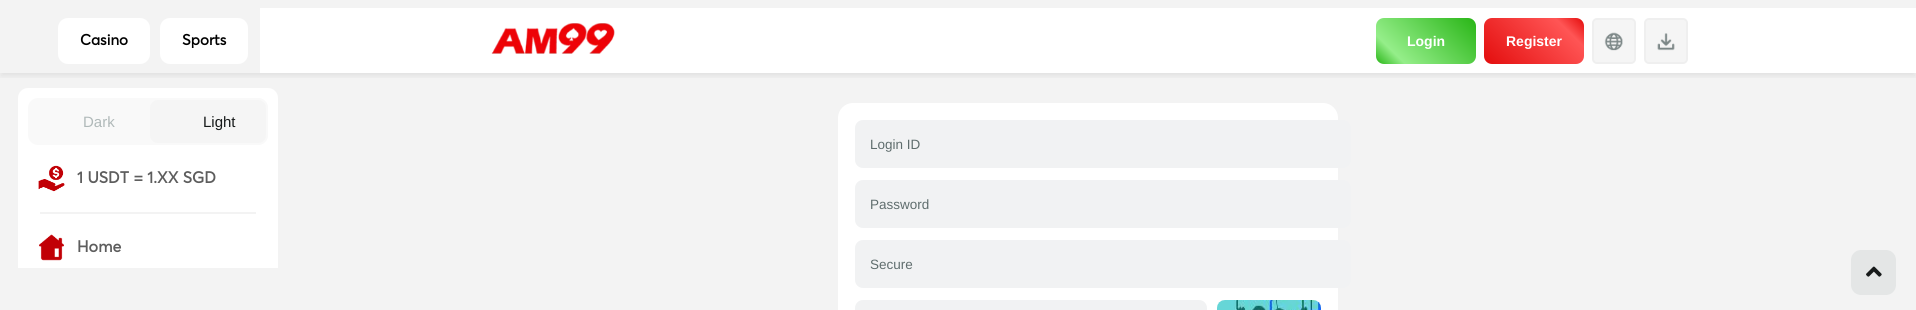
import math
import cairo


def use_color(cr, r, g, b):
  cr.set_source_rgb(r / 255, g / 255, b / 255)

def text(cr, x, y, s, family, size, color, bold=False, italic=False):
  cr.select_font_face(family, cairo.FONT_SLANT_ITALIC if italic else cairo.FONT_SLANT_NORMAL, cairo.FONT_WEIGHT_BOLD if bold else cairo.FONT_WEIGHT_NORMAL)
  cr.set_font_size(size)
  use_color(cr, *color)
  cr.move_to(x, y)
  cr.show_text(s)

def box(cr, x, y, w, h, *color):
  use_color(cr, *color)
  cr.rectangle(x, y, w, h)
  cr.fill()

def round_rect(cr, x, y, w, h, r):
  cr.new_sub_path()
  for i, (u, v) in enumerate([(x + w - r, y + h - r), (x + r, y + h - r), (x + r, y + r), (x + w - r, y + r)]):
    cr.arc(u, v, r, i * math.pi / 2, (i + 1) * math.pi / 2)
  cr.close_path()

def shadow(cr, x, y, w, h, r, blur, alpha):
  cr.push_group_with_content(cairo.CONTENT_ALPHA)
  cr.set_operator(cairo.OPERATOR_SOURCE)
  for i in range(15, -16, -2):
    e = blur * i / 6
    if min(w, h) + 2 * e > 0:
      cr.set_source_rgba(0, 0, 0, alpha * math.erfc((i - 1) / 8.5) / 2)
      round_rect(cr, x - e, y - e, w + 2 * e, h + 2 * e, max(0, min(r + e + blur * .6, min(w, h) / 2 + e)))
      cr.fill()
  cr.mask(cr.pop_group())

def picture(cr, path, x, y, w, h):
  cr.save()
  cr.set_source_surface(cairo.ImageSurface.create_from_png(path), x, y)
  cr.rectangle(x, y, w, h)
  cr.fill()
  cr.restore()

def draw(cr):
  use_color(cr, 243, 243, 243)
  cr.paint()
  cr.save()
  cr.rectangle(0, 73, 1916, 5)
  cr.clip()
  use_color(cr, 0, 0, 0)
  shadow(cr, 1, 13, 1914, 63, 0, 3, 0.08)
  cr.restore()
  use_color(cr, 255, 255, 255)
  round_rect(cr, 58, 18, 92, 46, 10)
  cr.fill()
  round_rect(cr, 160, 18, 88, 46, 10)
  cr.fill()
  box(cr, 260, 8, 1656, 65, 255, 255, 255)
  picture(cr, "img_01.png", 491, 23, 124, 31)
  gradient = cairo.LinearGradient(1463, 4.5, 1390, 78)
  gradient.add_color_stop_rgba(0, 0.157, 0.71, 0.086, 1)
  gradient.add_color_stop_rgba(0.8, 0.584, 0.933, 0.541, 1)
  gradient.add_color_stop_rgba(1, 0.157, 0.71, 0.086, 1)
  cr.set_source(gradient)
  round_rect(cr, 1376, 18, 100, 46, 8)
  cr.fill()
  gradient = cairo.LinearGradient(1498, 78, 1571, 4.5)
  gradient.add_color_stop_rgba(0, 0.89, 0.051, 0.051, 1)
  gradient.add_color_stop_rgba(0.8, 1, 0.333, 0.333, 1)
  gradient.add_color_stop_rgba(1, 0.89, 0.039, 0.039, 1)
  cr.set_source(gradient)
  round_rect(cr, 1484, 18, 100, 46, 8)
  cr.fill()
  use_color(cr, 245, 245, 245)
  round_rect(cr, 1593, 19, 42, 44, 4)
  cr.fill_preserve()
  use_color(cr, 239, 239, 239)
  cr.stroke()
  picture(cr, "img_02.png", 1604, 32, 19, 19)
  use_color(cr, 245, 245, 245)
  round_rect(cr, 1645, 19, 42, 44, 4)
  cr.fill_preserve()
  use_color(cr, 239, 239, 239)
  cr.stroke()
  picture(cr, "img_03.png", 1657, 33, 18, 18)
  use_color(cr, 255, 255, 255)
  cr.new_path()
  cr.move_to(28, 88)
  cr.line_to(268, 88)
  cr.curve_to(273.5, 88, 278, 92.5, 278, 98)
  cr.line_to(278, 268)
  cr.line_to(18, 268)
  cr.line_to(18, 98)
  cr.curve_to(18, 92.5, 22.5, 88, 28, 88)
  cr.close_path()
  cr.fill()
  use_color(cr, 249, 249, 249)
  round_rect(cr, 28, 98, 240, 47, 10)
  cr.fill()
  use_color(cr, 245, 245, 245)
  round_rect(cr, 149, 99, 118, 45, 9)
  cr.fill_preserve()
  use_color(cr, 249, 249, 249)
  cr.stroke()
  picture(cr, "img_04.png", 38, 165, 27, 27)
  box(cr, 40, 212, 216, 2, 243, 243, 243)
  picture(cr, "img_05.png", 39, 234, 25, 27)
  use_color(cr, 255, 255, 255)
  round_rect(cr, 838, 103, 500, 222, 15)
  cr.fill()
  use_color(cr, 241, 242, 243)
  round_rect(cr, 855, 120, 496, 48, 8)
  cr.fill()
  round_rect(cr, 855, 180, 496, 48, 8)
  cr.fill()
  round_rect(cr, 855, 240, 496, 48, 8)
  cr.fill()
  round_rect(cr, 855, 300, 352, 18, 8)
  cr.fill()
  picture(cr, "img_06.png", 1217, 300, 104, 10)
  use_color(cr, 228, 230, 230)
  round_rect(cr, 1851, 250, 45, 45, 10)
  cr.fill()
  picture(cr, "img_07.png", 1866, 266, 16, 11)
  text(cr, 80, 45, "Casino", "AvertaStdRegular", 15, (0, 0, 0), bold=True)
  text(cr, 182, 45, "Sports", "AvertaStdRegular", 15, (0, 0, 0), bold=True)
  text(cr, 1407, 46, "Login", "Liberation Sans", 14, (255, 255, 255), bold=True)
  text(cr, 1506, 46, "Register", "Liberation Sans", 14, (255, 255, 255), bold=True)
  text(cr, 83, 127, "Dark", "Liberation Sans", 15, (176, 185, 185))
  text(cr, 203, 127, "Light", "Liberation Sans", 15, (23, 26, 26))
  text(cr, 77, 183, "1 USDT = 1.XX SGD", "AvertaStdRegular", 16, (93, 93, 93), bold=True)
  text(cr, 77, 252, "Home", "AvertaStdRegular", 16, (93, 93, 93), bold=True)
  text(cr, 870, 149, "Login ID", "Liberation Sans", 13.5, (95, 109, 109))
  text(cr, 870, 209, "Password", "Liberation Sans", 13.5, (95, 109, 109))
  text(cr, 870, 269, "Secure", "Liberation Sans", 13.5, (95, 109, 109))


surface = cairo.ImageSurface(cairo.FORMAT_RGB24, 1916, 310)
cr = cairo.Context(surface)
options = cairo.FontOptions()
options.set_hint_metrics(cairo.HINT_METRICS_OFF)
options.set_hint_style(cairo.HINT_STYLE_NONE)
cr.set_font_options(options)
cr.set_miter_limit(4)
draw(cr)
surface.write_to_png("out.png")
